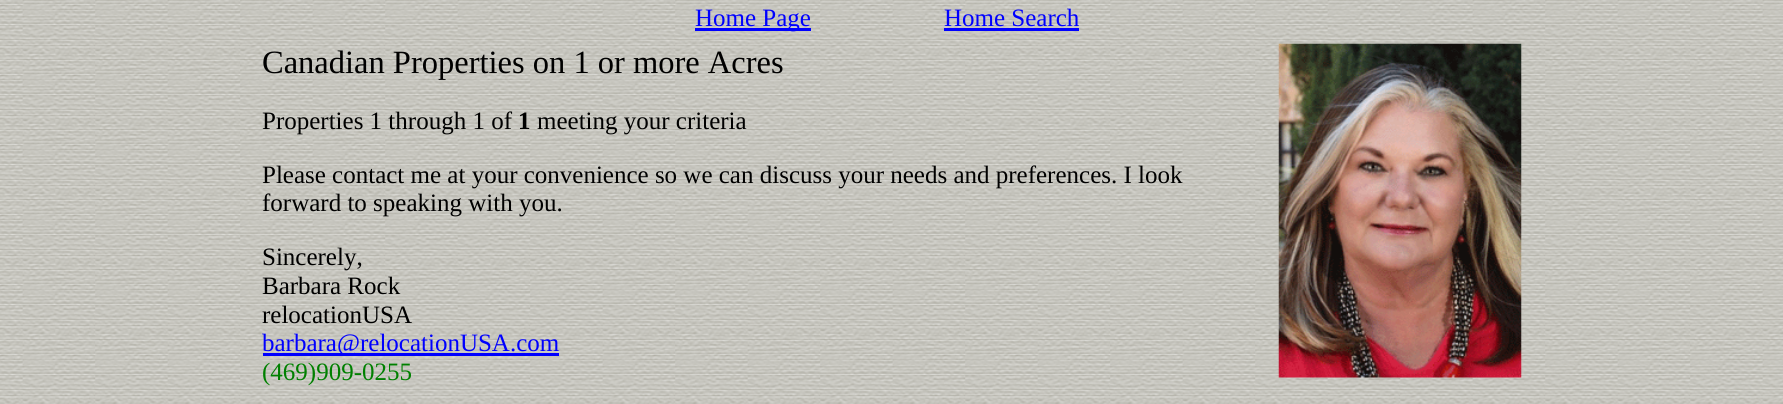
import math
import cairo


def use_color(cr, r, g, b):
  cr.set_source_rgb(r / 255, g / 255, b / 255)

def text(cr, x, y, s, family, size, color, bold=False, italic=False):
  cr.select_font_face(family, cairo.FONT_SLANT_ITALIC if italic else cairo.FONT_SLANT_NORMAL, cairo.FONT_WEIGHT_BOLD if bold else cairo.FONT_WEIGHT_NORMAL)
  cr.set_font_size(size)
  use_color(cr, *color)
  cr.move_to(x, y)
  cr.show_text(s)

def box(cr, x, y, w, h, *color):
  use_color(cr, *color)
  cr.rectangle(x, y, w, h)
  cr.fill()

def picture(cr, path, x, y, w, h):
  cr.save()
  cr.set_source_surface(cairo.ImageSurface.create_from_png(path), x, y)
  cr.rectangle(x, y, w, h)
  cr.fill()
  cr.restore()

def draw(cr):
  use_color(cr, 255, 255, 255)
  cr.paint()
  picture(cr, "img_01.png", 0, 0, 1783, 404)
  box(cr, 695, 28, 116, 3, 0, 0, 255)
  box(cr, 944, 28, 135, 3, 0, 0, 255)
  box(cr, 263, 353, 296, 3, 0, 0, 255)
  picture(cr, "img_02.png", 1278, 43, 244, 335)
  text(cr, 695, 26, "Home Page", "Liberation Serif", 25, (0, 0, 255))
  text(cr, 944, 26, "Home Search", "Liberation Serif", 25, (0, 0, 255))
  text(cr, 262, 73, "Canadian Properties on 1 or more Acres", "Liberation Serif", 32.5, (0, 0, 0))
  text(cr, 262, 129, "Properties 1 through 1 of", "Liberation Serif", 25, (0, 0, 0))
  text(cr, 518, 129, "1", "Liberation Serif", 25, (0, 0, 0), bold=True)
  text(cr, 537, 129, "meeting your criteria", "Liberation Serif", 25, (0, 0, 0))
  text(cr, 262, 183, "Please contact me at your convenience so we can discuss your needs and preferences. I look", "Liberation Serif", 25, (0, 0, 0))
  text(cr, 262, 211, "forward to speaking with you.", "Liberation Serif", 25, (0, 0, 0))
  text(cr, 262, 265, "Sincerely,", "Liberation Serif", 25, (0, 0, 0))
  text(cr, 262, 294, "Barbara Rock", "Liberation Serif", 25, (0, 0, 0))
  text(cr, 262, 323, "relocationUSA", "Liberation Serif", 25, (0, 0, 0))
  text(cr, 262, 351, "barbara@relocationUSA.com", "Liberation Serif", 25, (0, 0, 255))
  text(cr, 262, 380, "(469)909-0255", "Liberation Serif", 25, (0, 128, 0))


surface = cairo.ImageSurface(cairo.FORMAT_RGB24, 1783, 404)
cr = cairo.Context(surface)
options = cairo.FontOptions()
options.set_hint_metrics(cairo.HINT_METRICS_OFF)
options.set_hint_style(cairo.HINT_STYLE_NONE)
cr.set_font_options(options)
cr.set_miter_limit(4)
draw(cr)
surface.write_to_png("out.png")
